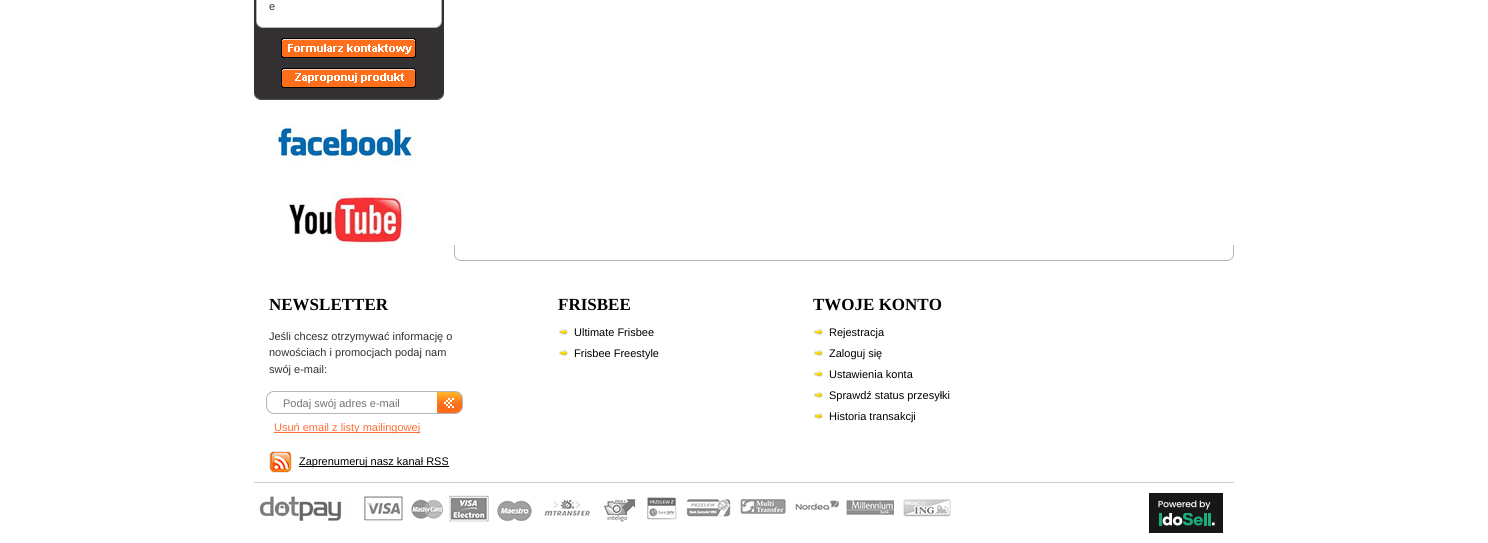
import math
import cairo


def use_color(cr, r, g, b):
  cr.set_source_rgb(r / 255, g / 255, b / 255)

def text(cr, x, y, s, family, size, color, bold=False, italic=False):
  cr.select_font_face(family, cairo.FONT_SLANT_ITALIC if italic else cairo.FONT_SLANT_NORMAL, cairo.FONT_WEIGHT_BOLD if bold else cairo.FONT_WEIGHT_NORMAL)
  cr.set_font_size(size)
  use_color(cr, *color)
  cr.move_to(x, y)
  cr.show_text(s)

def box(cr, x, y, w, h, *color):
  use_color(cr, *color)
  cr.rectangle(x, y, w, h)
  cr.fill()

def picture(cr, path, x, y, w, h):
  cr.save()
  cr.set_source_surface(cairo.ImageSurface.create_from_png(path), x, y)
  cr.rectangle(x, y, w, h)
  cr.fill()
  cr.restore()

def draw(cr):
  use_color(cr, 255, 255, 255)
  cr.paint()
  picture(cr, "img_01.png", 454, 245, 780, 16)
  picture(cr, "img_02.png", 254, 88, 190, 12)
  picture(cr, "img_03.png", 254, 0, 190, 20)
  box(cr, 254, 20, 190, 68, 52, 49, 50)
  picture(cr, "img_04.png", 256, 20, 186, 8)
  picture(cr, "img_05.png", 281, 38, 135, 20)
  picture(cr, "img_06.png", 281, 68, 135, 20)
  picture(cr, "img_07.png", 272, 122, 144, 40)
  picture(cr, "img_08.png", 289, 193, 127, 52)
  box(cr, 254, 482, 980, 1, 204, 204, 204)
  picture(cr, "img_09.png", 266, 391, 196, 23)
  picture(cr, "img_10.png", 437, 391, 26, 23)
  box(cr, 274, 432, 146, 1, 254, 111, 55)
  picture(cr, "img_11.png", 269, 451, 23, 22)
  box(cr, 299, 466, 150, 1, 0, 0, 0)
  picture(cr, "img_12.png", 559, 329, 9, 6)
  picture(cr, "img_12.png", 559, 350, 9, 6)
  picture(cr, "img_12.png", 814, 329, 9, 6)
  picture(cr, "img_12.png", 814, 350, 9, 6)
  picture(cr, "img_12.png", 814, 371, 9, 6)
  picture(cr, "img_12.png", 814, 392, 9, 6)
  picture(cr, "img_12.png", 814, 413, 9, 6)
  picture(cr, "img_13.png", 259, 495, 692, 27)
  picture(cr, "img_14.png", 1149, 493, 74, 40)
  text(cr, 269, 10, "e", "Liberation Sans", 11, (48, 48, 48))
  text(cr, 269, 310, "NEWSLETTER", "Liberation Serif", 17, (0, 0, 0), bold=True)
  text(cr, 269, 340, "Jeśli chcesz otrzymywać informację o", "Liberation Sans", 11, (48, 48, 48))
  text(cr, 269, 356, "nowościach i promocjach podaj nam", "Liberation Sans", 11, (48, 48, 48))
  text(cr, 269, 373, "swój e-mail:", "Liberation Sans", 11, (48, 48, 48))
  cr.save()
  cr.rectangle(280, 397, 145, 12)
  cr.clip()
  text(cr, 283, 407, "Podaj swój adres e-mail", "Liberation Sans", 11, (115, 115, 115))
  cr.restore()
  text(cr, 274, 431, "Usuń email z listy mailingowej", "Liberation Sans", 11, (254, 111, 55))
  text(cr, 299, 465, "Zaprenumeruj nasz kanał RSS", "Liberation Sans", 11, (0, 0, 0))
  text(cr, 558, 310, "FRISBEE", "Liberation Serif", 17, (0, 0, 0), bold=True)
  text(cr, 574, 336, "Ultimate Frisbee", "Liberation Sans", 11, (0, 0, 0))
  text(cr, 574, 357, "Frisbee Freestyle", "Liberation Sans", 11, (0, 0, 0))
  text(cr, 813, 310, "TWOJE KONTO", "Liberation Serif", 17, (0, 0, 0), bold=True)
  text(cr, 829, 336, "Rejestracja", "Liberation Sans", 11, (0, 0, 0))
  text(cr, 829, 357, "Zaloguj się", "Liberation Sans", 11, (0, 0, 0))
  text(cr, 829, 378, "Ustawienia konta", "Liberation Sans", 11, (0, 0, 0))
  text(cr, 829, 399, "Sprawdź status przesyłki", "Liberation Sans", 11, (0, 0, 0))
  text(cr, 829, 420, "Historia transakcji", "Liberation Sans", 11, (0, 0, 0))


surface = cairo.ImageSurface(cairo.FORMAT_RGB24, 1488, 543)
cr = cairo.Context(surface)
options = cairo.FontOptions()
options.set_hint_metrics(cairo.HINT_METRICS_OFF)
options.set_hint_style(cairo.HINT_STYLE_NONE)
cr.set_font_options(options)
cr.set_miter_limit(4)
draw(cr)
surface.write_to_png("out.png")
